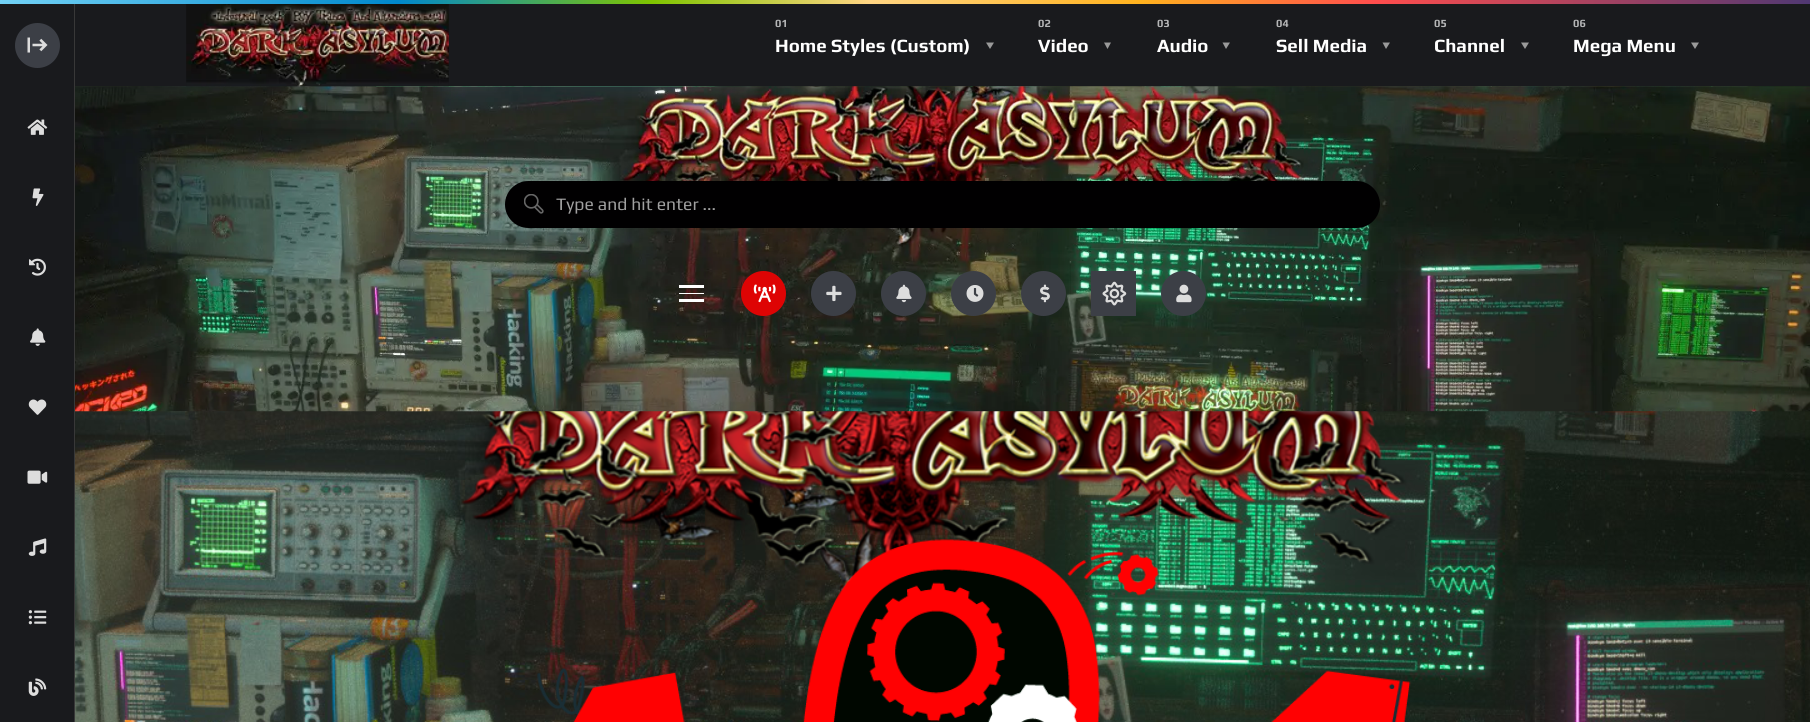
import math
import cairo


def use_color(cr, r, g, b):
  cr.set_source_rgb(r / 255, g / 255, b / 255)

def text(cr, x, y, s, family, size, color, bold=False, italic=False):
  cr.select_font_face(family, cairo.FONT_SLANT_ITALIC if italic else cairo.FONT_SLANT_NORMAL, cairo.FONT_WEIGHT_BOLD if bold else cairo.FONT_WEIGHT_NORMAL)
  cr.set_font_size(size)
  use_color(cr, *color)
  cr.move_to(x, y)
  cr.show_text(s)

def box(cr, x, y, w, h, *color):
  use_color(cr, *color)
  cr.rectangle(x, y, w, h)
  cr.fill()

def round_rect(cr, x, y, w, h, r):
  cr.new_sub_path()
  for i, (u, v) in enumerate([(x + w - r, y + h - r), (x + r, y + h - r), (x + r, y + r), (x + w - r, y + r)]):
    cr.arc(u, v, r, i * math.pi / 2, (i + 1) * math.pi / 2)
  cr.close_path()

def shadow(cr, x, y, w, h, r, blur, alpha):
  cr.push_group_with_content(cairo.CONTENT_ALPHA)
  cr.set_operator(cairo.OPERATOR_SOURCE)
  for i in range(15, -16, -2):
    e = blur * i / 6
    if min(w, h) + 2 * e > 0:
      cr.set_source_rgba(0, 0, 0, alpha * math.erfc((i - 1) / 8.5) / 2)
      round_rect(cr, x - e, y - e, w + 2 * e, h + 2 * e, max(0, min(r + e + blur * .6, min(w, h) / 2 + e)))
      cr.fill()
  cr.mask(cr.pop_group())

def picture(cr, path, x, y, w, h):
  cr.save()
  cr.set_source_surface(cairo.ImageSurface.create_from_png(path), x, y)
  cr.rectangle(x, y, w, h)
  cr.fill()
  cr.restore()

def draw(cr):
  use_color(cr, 255, 255, 255)
  cr.paint()
  picture(cr, "img_01.png", 75, 86, 1735, 636)
  picture(cr, "img_13.png", 75, 86, 1735, 326)
  use_color(cr, 28, 45, 66)
  shadow(cr, 74, 4, 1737, 85, 0, 5, 0.09)
  box(cr, 0, 4, 74, 718, 25, 26, 29)
  box(cr, 74, 0, 1, 722, 56, 56, 56)
  use_color(cr, 60, 63, 70)
  cr.arc(37.5, 45.5, 22.5, 0, 2 * math.pi)
  cr.fill()
  picture(cr, "img_02.png", 27, 37, 21, 16)
  picture(cr, "img_03.png", 27, 119, 21, 16)
  picture(cr, "img_04.png", 32, 188, 12, 18)
  picture(cr, "img_05.png", 29, 258, 17, 18)
  picture(cr, "img_06.png", 30, 328, 16, 18)
  picture(cr, "img_07.png", 28, 399, 19, 16)
  picture(cr, "img_08.png", 27, 470, 21, 14)
  picture(cr, "img_09.png", 28, 538, 19, 18)
  picture(cr, "img_10.png", 28, 610, 19, 15)
  picture(cr, "img_11.png", 28, 678, 19, 18)
  gradient = cairo.LinearGradient(0, 1.9, 1810, 1.9)
  gradient.add_color_stop_rgba(0, 0.451, 0.824, 0.965, 1)
  gradient.add_color_stop_rgba(0.22, 0, 0.533, 0.8, 1)
  gradient.add_color_stop_rgba(0.36, 0.498, 0.769, 0, 1)
  gradient.add_color_stop_rgba(0.48, 1, 0.835, 0.514, 1)
  gradient.add_color_stop_rgba(0.63, 1, 0.698, 0.118, 1)
  gradient.add_color_stop_rgba(0.76, 1, 0.302, 0.302, 1)
  gradient.add_color_stop_rgba(1, 0.314, 0.22, 0.451, 1)
  cr.set_source(gradient)
  cr.rectangle(0, 0, 1810, 4)
  cr.fill()
  box(cr, 75, 4, 1735, 82, 25, 26, 29)
  picture(cr, "img_12.png", 186, 4, 263, 83)
  use_color(cr, 154, 154, 154)
  cr.new_path()
  cr.move_to(986, 42.5)
  cr.line_to(994, 42.5)
  cr.line_to(990, 49)
  cr.close_path()
  cr.fill()
  cr.new_path()
  cr.move_to(1104, 42.5)
  cr.line_to(1111, 42.5)
  cr.line_to(1107.5, 49)
  cr.close_path()
  cr.fill()
  cr.new_path()
  cr.move_to(1222.5, 42.5)
  cr.line_to(1230, 42.5)
  cr.line_to(1226, 49)
  cr.close_path()
  cr.fill()
  cr.new_path()
  cr.move_to(1382.5, 42.5)
  cr.line_to(1390, 42.5)
  cr.line_to(1386, 49)
  cr.close_path()
  cr.fill()
  cr.new_path()
  cr.move_to(1521, 42.5)
  cr.line_to(1529, 42.5)
  cr.line_to(1525, 49)
  cr.close_path()
  cr.fill()
  cr.new_path()
  cr.move_to(1691, 42.5)
  cr.line_to(1699, 42.5)
  cr.line_to(1695, 49)
  cr.close_path()
  cr.fill()
  use_color(cr, 1, 0, 1)
  round_rect(cr, 505, 181, 875, 47, 23.5)
  cr.fill()
  picture(cr, "img_14.png", 524, 194, 20, 20)
  box(cr, 679, 285, 25, 3, 255, 255, 255)
  box(cr, 679, 293, 25, 1, 255, 255, 255)
  box(cr, 679, 299, 25, 3, 255, 255, 255)
  use_color(cr, 222, 4, 4)
  cr.arc(763.5, 293.5, 22.5, 0, 2 * math.pi)
  cr.fill()
  picture(cr, "img_15.png", 753, 284, 23, 19)
  use_color(cr, 60, 63, 70)
  cr.arc(833.5, 293.5, 22.5, 0, 2 * math.pi)
  cr.fill()
  picture(cr, "img_16.png", 826, 285, 16, 17)
  cr.arc(903.5, 293.5, 22.5, 0, 2 * math.pi)
  cr.fill()
  picture(cr, "img_17.png", 896, 284, 16, 19)
  cr.arc(973.5, 293.5, 22.5, 0, 2 * math.pi)
  cr.fill()
  picture(cr, "img_18.png", 966, 285, 18, 17)
  cr.arc(1043.5, 293.5, 22.5, 0, 2 * math.pi)
  cr.fill()
  picture(cr, "img_19.png", 1040, 284, 10, 19)
  box(cr, 1091, 271, 45, 45, 60, 63, 70)
  picture(cr, "img_20.png", 1102, 281, 25, 25)
  cr.arc(1183.5, 293.5, 22.5, 0, 2 * math.pi)
  cr.fill()
  picture(cr, "img_21.png", 1176, 284, 16, 19)
  picture(cr, "img_22.png", 537, 539, 874, 183)
  text(cr, 775, 27, "01", "Play", 11, (181, 182, 183), bold=True)
  text(cr, 775, 52, "Home Styles (Custom)", "Play", 18.75, (255, 255, 255), bold=True)
  text(cr, 1038, 27, "02", "Play", 11, (181, 182, 183), bold=True)
  text(cr, 1038, 52, "Video", "Play", 18.75, (255, 255, 255), bold=True)
  text(cr, 1157, 27, "03", "Play", 11, (181, 182, 183), bold=True)
  text(cr, 1157, 52, "Audio", "Play", 18.75, (255, 255, 255), bold=True)
  text(cr, 1276, 27, "04", "Play", 11, (181, 182, 183), bold=True)
  text(cr, 1276, 52, "Sell Media", "Play", 18.75, (255, 255, 255), bold=True)
  text(cr, 1434, 27, "05", "Play", 11, (181, 182, 183), bold=True)
  text(cr, 1434, 52, "Channel", "Play", 18.75, (255, 255, 255), bold=True)
  text(cr, 1573, 27, "06", "Play", 11, (181, 182, 183), bold=True)
  text(cr, 1573, 52, "Mega Menu", "Play", 18.75, (255, 255, 255), bold=True)
  text(cr, 556, 210, "Type and hit enter ...", "Play", 17.5, (160, 160, 160))


surface = cairo.ImageSurface(cairo.FORMAT_RGB24, 1810, 722)
cr = cairo.Context(surface)
options = cairo.FontOptions()
options.set_hint_metrics(cairo.HINT_METRICS_OFF)
options.set_hint_style(cairo.HINT_STYLE_NONE)
cr.set_font_options(options)
cr.set_miter_limit(4)
draw(cr)
surface.write_to_png("out.png")
